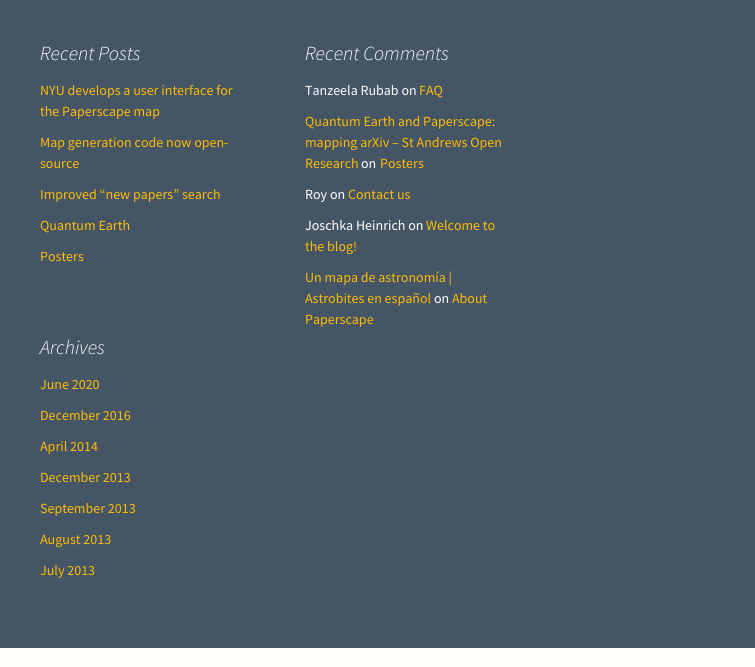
import math
import cairo


def use_color(cr, r, g, b):
  cr.set_source_rgb(r / 255, g / 255, b / 255)

def text(cr, x, y, s, family, size, color, bold=False, italic=False):
  cr.select_font_face(family, cairo.FONT_SLANT_ITALIC if italic else cairo.FONT_SLANT_NORMAL, cairo.FONT_WEIGHT_BOLD if bold else cairo.FONT_WEIGHT_NORMAL)
  cr.set_font_size(size)
  use_color(cr, *color)
  cr.move_to(x, y)
  cr.show_text(s)

def box(cr, x, y, w, h, *color):
  use_color(cr, *color)
  cr.rectangle(x, y, w, h)
  cr.fill()

def draw(cr):
  use_color(cr, 255, 255, 252)
  cr.paint()
  box(cr, 0, 0, 755, 648, 68, 85, 102)
  text(cr, 40, 60, "Recent Posts", "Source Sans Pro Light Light", 20, (255, 255, 255), italic=True)
  text(cr, 40, 95, "NYU develops a user interface for", "Source Sans Pro", 14, (255, 187, 0))
  text(cr, 40, 116, "the Paperscape map", "Source Sans Pro", 14, (255, 187, 0))
  text(cr, 40, 147, "Map generation code now open-", "Source Sans Pro", 14, (255, 187, 0))
  text(cr, 40, 168, "source", "Source Sans Pro", 14, (255, 187, 0))
  text(cr, 40, 199, "Improved “new papers” search", "Source Sans Pro", 14, (255, 187, 0))
  text(cr, 40, 230, "Quantum Earth", "Source Sans Pro", 14, (255, 187, 0))
  text(cr, 40, 261, "Posters", "Source Sans Pro", 14, (255, 187, 0))
  text(cr, 305, 60, "Recent Comments", "Source Sans Pro Light Light", 20, (255, 255, 255), italic=True)
  text(cr, 305, 95, "Tanzeela Rubab on", "Source Sans Pro", 14, (255, 255, 255))
  text(cr, 419, 95, "FAQ", "Source Sans Pro", 14, (255, 187, 0))
  text(cr, 305, 126, "Quantum Earth and Paperscape:", "Source Sans Pro", 14, (255, 187, 0))
  text(cr, 305, 147, "mapping arXiv – St Andrews Open", "Source Sans Pro", 14, (255, 187, 0))
  text(cr, 305, 168, "Research", "Source Sans Pro", 14, (255, 187, 0))
  text(cr, 361, 168, "on", "Source Sans Pro", 14, (255, 255, 255))
  text(cr, 380, 168, "Posters", "Source Sans Pro", 14, (255, 187, 0))
  text(cr, 305, 199, "Roy on", "Source Sans Pro", 14, (255, 255, 255))
  text(cr, 348, 199, "Contact us", "Source Sans Pro", 14, (255, 187, 0))
  text(cr, 305, 230, "Joschka Heinrich on", "Source Sans Pro", 14, (255, 255, 255))
  text(cr, 426, 230, "Welcome to", "Source Sans Pro", 14, (255, 187, 0))
  text(cr, 305, 251, "the blog!", "Source Sans Pro", 14, (255, 187, 0))
  text(cr, 305, 282, "Un mapa de astronomía |", "Source Sans Pro", 14, (255, 187, 0))
  text(cr, 305, 303, "Astrobites en español", "Source Sans Pro", 14, (255, 187, 0))
  text(cr, 434, 303, "on", "Source Sans Pro", 14, (255, 255, 255))
  text(cr, 452, 303, "About", "Source Sans Pro", 14, (255, 187, 0))
  text(cr, 305, 324, "Paperscape", "Source Sans Pro", 14, (255, 187, 0))
  text(cr, 40, 354, "Archives", "Source Sans Pro Light Light", 20, (255, 255, 255), italic=True)
  text(cr, 40, 389, "June 2020", "Source Sans Pro", 14, (255, 187, 0))
  text(cr, 40, 420, "December 2016", "Source Sans Pro", 14, (255, 187, 0))
  text(cr, 40, 451, "April 2014", "Source Sans Pro", 14, (255, 187, 0))
  text(cr, 40, 482, "December 2013", "Source Sans Pro", 14, (255, 187, 0))
  text(cr, 40, 513, "September 2013", "Source Sans Pro", 14, (255, 187, 0))
  text(cr, 40, 544, "August 2013", "Source Sans Pro", 14, (255, 187, 0))
  text(cr, 40, 575, "July 2013", "Source Sans Pro", 14, (255, 187, 0))


surface = cairo.ImageSurface(cairo.FORMAT_RGB24, 755, 667)
cr = cairo.Context(surface)
options = cairo.FontOptions()
options.set_hint_metrics(cairo.HINT_METRICS_OFF)
options.set_hint_style(cairo.HINT_STYLE_NONE)
cr.set_font_options(options)
cr.set_miter_limit(4)
draw(cr)
surface.write_to_png("out.png")
